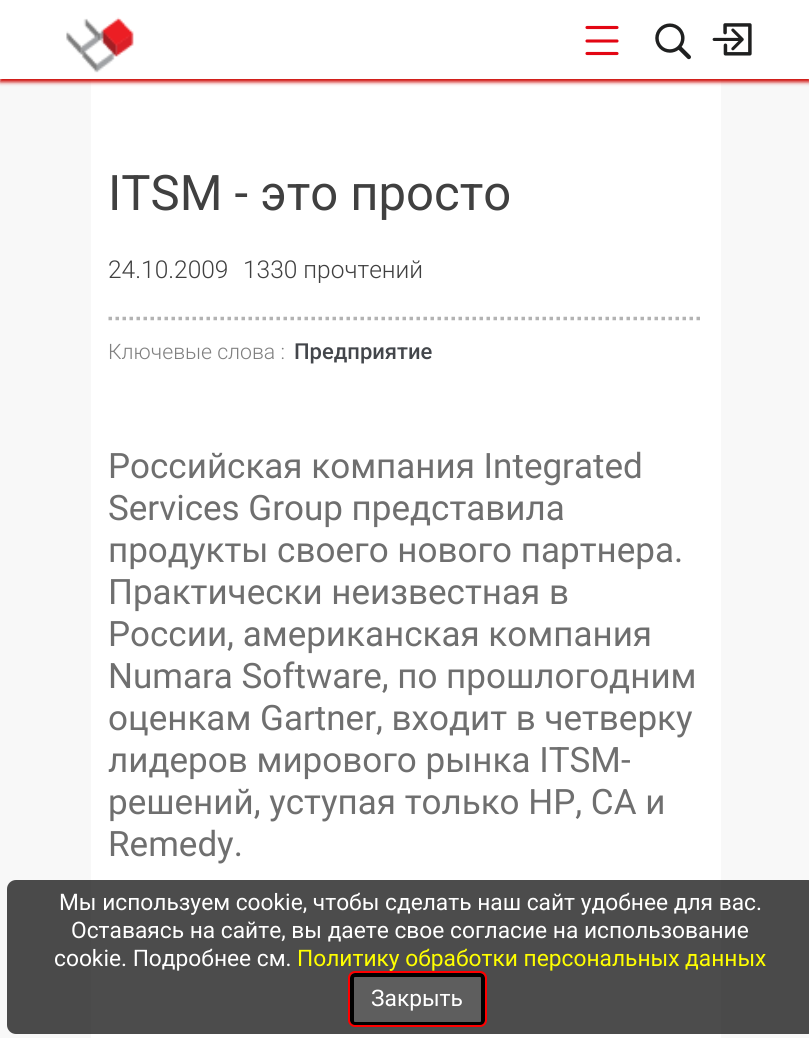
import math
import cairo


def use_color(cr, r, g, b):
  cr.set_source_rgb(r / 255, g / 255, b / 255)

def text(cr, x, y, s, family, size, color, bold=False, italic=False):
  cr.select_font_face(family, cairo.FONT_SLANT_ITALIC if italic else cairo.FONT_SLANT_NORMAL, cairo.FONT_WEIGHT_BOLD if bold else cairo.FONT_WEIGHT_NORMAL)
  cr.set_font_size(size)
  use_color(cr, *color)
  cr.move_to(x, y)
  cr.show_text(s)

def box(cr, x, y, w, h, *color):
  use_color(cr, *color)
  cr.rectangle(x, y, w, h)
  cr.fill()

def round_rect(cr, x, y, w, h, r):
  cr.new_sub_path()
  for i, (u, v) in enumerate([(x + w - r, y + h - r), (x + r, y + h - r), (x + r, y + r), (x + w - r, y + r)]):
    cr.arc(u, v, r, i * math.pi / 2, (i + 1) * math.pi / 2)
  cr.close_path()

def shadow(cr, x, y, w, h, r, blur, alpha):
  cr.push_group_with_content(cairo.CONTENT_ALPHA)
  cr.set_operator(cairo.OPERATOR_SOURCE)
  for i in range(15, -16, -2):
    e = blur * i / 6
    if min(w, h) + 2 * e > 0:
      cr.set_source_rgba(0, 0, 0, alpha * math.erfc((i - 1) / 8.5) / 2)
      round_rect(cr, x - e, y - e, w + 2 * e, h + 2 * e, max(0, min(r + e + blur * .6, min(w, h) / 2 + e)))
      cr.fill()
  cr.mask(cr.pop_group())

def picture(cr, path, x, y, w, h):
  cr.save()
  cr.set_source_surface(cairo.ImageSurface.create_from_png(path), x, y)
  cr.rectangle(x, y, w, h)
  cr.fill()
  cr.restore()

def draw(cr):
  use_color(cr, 248, 248, 248)
  cr.paint()
  box(cr, 91, 79, 630, 959, 255, 255, 255)
  use_color(cr, 205, 4, 0)
  shadow(cr, 0, 4, 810, 78, 0, 2, 1)
  box(cr, 0, 0, 809, 79, 255, 255, 255)
  picture(cr, "img_01.png", 66, 17, 68, 56)
  cr.new_path()
  cr.move_to(587, 27.5)
  cr.line_to(617, 27.5)
  cr.move_to(587, 41)
  cr.line_to(617, 41)
  cr.move_to(587, 53.5)
  cr.line_to(617, 53.5)
  use_color(cr, 227, 6, 19)
  cr.set_line_width(3.1)
  cr.set_line_cap(cairo.LINE_CAP_ROUND)
  cr.stroke()
  picture(cr, "img_02.png", 655, 23, 36, 37)
  picture(cr, "img_03.png", 712, 23, 40, 33)
  cr.new_path()
  cr.move_to(108.5, 318.5)
  cr.line_to(703.5, 318.5)
  use_color(cr, 179, 179, 179)
  cr.set_line_width(3.5)
  cr.set_line_cap(cairo.LINE_CAP_BUTT)
  cr.set_dash([3.5, 3.5])
  cr.stroke()
  cr.set_source_rgba(0, 0, 0, 0.7)
  round_rect(cr, 7, 880, 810, 154, 9)
  cr.fill()
  use_color(cr, 94, 94, 94)
  round_rect(cr, 352, 975, 131, 49, 3)
  cr.fill_preserve()
  use_color(cr, 0, 0, 0)
  cr.set_line_width(4)
  cr.set_dash([])
  cr.stroke()
  round_rect(cr, 349, 972, 137, 54, 6)
  use_color(cr, 255, 0, 0)
  cr.set_line_width(2)
  cr.stroke()
  text(cr, 108, 210, "ITSM - это просто", "Roboto", 49, (64, 64, 64))
  text(cr, 108, 278, "24.10.2009", "Roboto Light", 24.5, (64, 64, 64))
  text(cr, 243, 278, "1330 прочтений", "Roboto Light", 24.5, (64, 64, 64))
  text(cr, 108, 359, "Ключевые слова :", "Roboto Light", 21.25, (128, 128, 128))
  text(cr, 294, 359, "Предприятие", "Roboto Medium", 22, (67, 70, 75))
  text(cr, 108, 478, "Российская компания Integrated", "Roboto", 35, (111, 111, 111))
  text(cr, 108, 520, "Services Group представила", "Roboto", 35, (111, 111, 111))
  text(cr, 108, 562, "продукты своего нового партнера.", "Roboto", 35, (111, 111, 111))
  text(cr, 108, 604, "Практически неизвестная в", "Roboto", 35, (111, 111, 111))
  text(cr, 108, 646, "России, американская компания", "Roboto", 35, (111, 111, 111))
  text(cr, 108, 688, "Numara Software, по прошлогодним", "Roboto", 35, (111, 111, 111))
  text(cr, 108, 730, "оценкам Gartner, входит в четверку", "Roboto", 35, (111, 111, 111))
  text(cr, 108, 772, "лидеров мирового рынка ITSM-", "Roboto", 35, (111, 111, 111))
  text(cr, 108, 814, "решений, уступая только HP, CA и", "Roboto", 35, (111, 111, 111))
  text(cr, 108, 856, "Remedy.", "Roboto", 35, (111, 111, 111))
  text(cr, 59, 910, "Мы используем cookie, чтобы сделать наш сайт удобнее для вас.", "Roboto", 22.75, (255, 255, 255))
  text(cr, 71, 938, "Оставаясь на сайте, вы даете свое согласие на использование", "Roboto", 22.75, (255, 255, 255))
  text(cr, 54, 966, "cookie. Подробнее см.", "Roboto", 22.75, (255, 255, 255))
  text(cr, 297, 966, "Политику обработки персональных данных", "Roboto", 22.75, (255, 255, 0))
  text(cr, 371, 1006, "Закрыть", "Roboto", 22.75, (255, 255, 255))


surface = cairo.ImageSurface(cairo.FORMAT_RGB24, 809, 1038)
cr = cairo.Context(surface)
options = cairo.FontOptions()
options.set_hint_metrics(cairo.HINT_METRICS_OFF)
options.set_hint_style(cairo.HINT_STYLE_NONE)
cr.set_font_options(options)
cr.set_miter_limit(4)
draw(cr)
surface.write_to_png("out.png")
